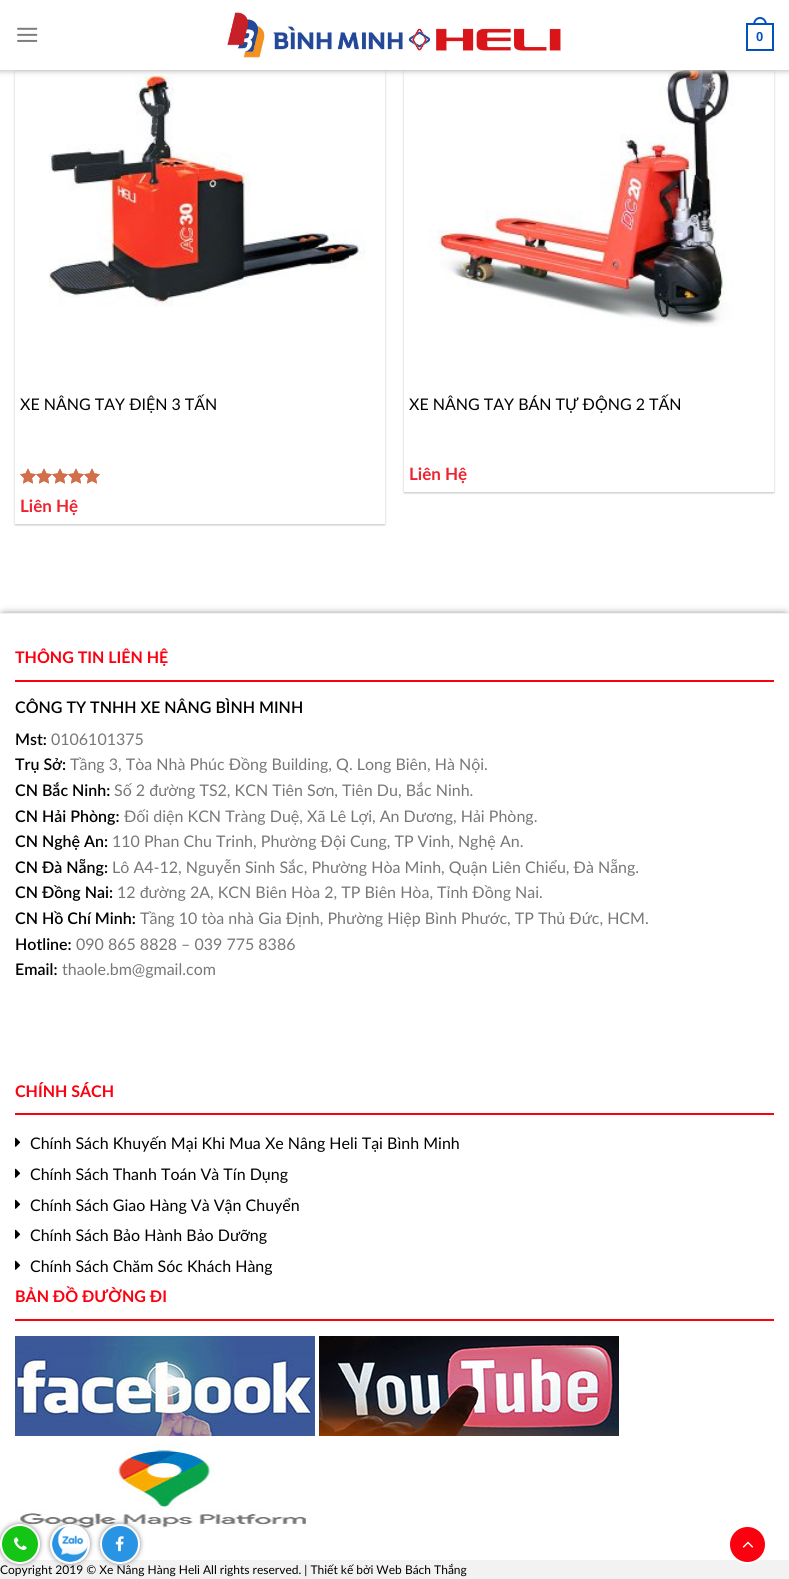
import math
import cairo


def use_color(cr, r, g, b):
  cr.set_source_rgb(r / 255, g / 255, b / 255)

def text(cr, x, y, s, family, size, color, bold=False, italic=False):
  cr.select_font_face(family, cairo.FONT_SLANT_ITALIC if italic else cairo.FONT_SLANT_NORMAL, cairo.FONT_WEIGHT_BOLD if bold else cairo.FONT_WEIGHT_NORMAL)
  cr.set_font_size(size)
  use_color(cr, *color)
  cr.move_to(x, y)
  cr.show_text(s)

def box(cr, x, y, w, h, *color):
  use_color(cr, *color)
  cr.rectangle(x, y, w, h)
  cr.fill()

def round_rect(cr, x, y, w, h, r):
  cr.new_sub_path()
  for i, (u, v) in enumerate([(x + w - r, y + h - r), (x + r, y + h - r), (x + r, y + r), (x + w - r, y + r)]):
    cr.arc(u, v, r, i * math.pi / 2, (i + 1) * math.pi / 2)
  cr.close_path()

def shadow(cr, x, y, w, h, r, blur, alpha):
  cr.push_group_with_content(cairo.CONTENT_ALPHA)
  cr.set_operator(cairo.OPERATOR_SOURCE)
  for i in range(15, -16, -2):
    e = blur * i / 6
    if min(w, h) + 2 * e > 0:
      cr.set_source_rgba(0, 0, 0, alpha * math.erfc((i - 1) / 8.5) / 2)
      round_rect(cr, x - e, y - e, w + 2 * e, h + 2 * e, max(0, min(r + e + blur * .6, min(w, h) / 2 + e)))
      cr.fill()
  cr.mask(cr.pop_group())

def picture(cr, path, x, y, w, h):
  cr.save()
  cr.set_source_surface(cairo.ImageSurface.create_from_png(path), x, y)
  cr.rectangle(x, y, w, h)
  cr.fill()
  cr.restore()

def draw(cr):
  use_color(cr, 255, 255, 255)
  cr.paint()
  cr.save()
  cr.set_fill_rule(cairo.FILL_RULE_EVEN_ODD)
  cr.new_path()
  cr.move_to(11, 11)
  cr.line_to(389, 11)
  cr.line_to(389, 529)
  cr.line_to(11, 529)
  cr.close_path()
  cr.move_to(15, 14)
  cr.line_to(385, 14)
  cr.line_to(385, 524)
  cr.line_to(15, 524)
  cr.close_path()
  cr.clip()
  use_color(cr, 0, 0, 0)
  shadow(cr, 15, 15, 370, 510, 0, 1, 0.24)
  cr.restore()
  picture(cr, "img_03.png", 48, 75, 318, 232)
  cr.save()
  cr.set_fill_rule(cairo.FILL_RULE_EVEN_ODD)
  cr.new_path()
  cr.move_to(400, 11)
  cr.line_to(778, 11)
  cr.line_to(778, 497)
  cr.line_to(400, 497)
  cr.close_path()
  cr.move_to(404, 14)
  cr.line_to(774, 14)
  cr.line_to(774, 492)
  cr.line_to(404, 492)
  cr.close_path()
  cr.clip()
  use_color(cr, 0, 0, 0)
  shadow(cr, 404, 15, 370, 478, 0, 1, 0.24)
  cr.restore()
  picture(cr, "img_06.png", 428, 70, 307, 257)
  use_color(cr, 204, 204, 204)
  shadow(cr, -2, -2, 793, 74, 0, 2.5, 1)
  box(cr, 0, 0, 789, 70, 255, 255, 255)
  picture(cr, "img_01.png", 17, 27, 21, 15)
  picture(cr, "img_02.png", 227, 12, 334, 46)
  cr.rectangle(747, 24, 26, 26)
  use_color(cr, 2, 82, 185)
  cr.stroke()
  cr.set_fill_rule(cairo.FILL_RULE_EVEN_ODD)
  cr.new_path()
  cr.move_to(760, 17)
  cr.curve_to(764.5, 17, 767, 21, 767, 25)
  cr.line_to(753, 25)
  cr.curve_to(753, 21, 755.5, 17, 760, 17)
  cr.close_path()
  cr.move_to(760, 19)
  cr.curve_to(763.5, 19, 765, 22, 765, 25)
  cr.line_to(755, 25)
  cr.curve_to(755, 22, 756.5, 19, 760, 19)
  cr.close_path()
  cr.fill()
  cr.set_source_rgba(0.467, 0.467, 0.467, 0.1)
  cr.rectangle(15, 70, 759, 1)
  cr.fill()
  picture(cr, "img_04.png", 20, 468, 80, 16)
  picture(cr, "img_05.png", 20, 468, 80, 16)
  use_color(cr, 0, 0, 0)
  shadow(cr, 4, 617, 781, 958, 0, 5, 1)
  box(cr, 0, 1560, 789, 19, 242, 242, 242)
  box(cr, 0, 614, 789, 946, 255, 255, 255)
  box(cr, 0, 613, 789, 1, 242, 242, 242)
  box(cr, 15, 680, 759, 2, 251, 0, 15)
  box(cr, 15, 1113, 759, 2, 251, 0, 15)
  picture(cr, "img_07.png", 15, 1137, 6, 10)
  picture(cr, "img_07.png", 15, 1168, 6, 10)
  picture(cr, "img_07.png", 15, 1199, 6, 10)
  picture(cr, "img_07.png", 15, 1229, 6, 10)
  picture(cr, "img_07.png", 15, 1260, 6, 10)
  box(cr, 15, 1319, 759, 2, 251, 0, 15)
  picture(cr, "img_08.png", 15, 1336, 300, 100)
  picture(cr, "img_09.png", 319, 1336, 300, 100)
  picture(cr, "img_10.png", 16, 1444, 295, 87)
  use_color(cr, 136, 136, 136)
  shadow(cr, 0, 1524, 40, 40, 20, 2.5, 1)
  shadow(cr, 50, 1524, 40, 40, 20, 2.5, 1)
  picture(cr, "img_12.png", 52, 1526, 36, 36)
  shadow(cr, 100, 1524, 40, 40, 20, 2.5, 1)
  use_color(cr, 251, 0, 15)
  cr.arc(747.5, 1544.5, 18.5, 0, 2 * math.pi)
  cr.fill_preserve()
  use_color(cr, 255, 255, 255)
  cr.stroke()
  picture(cr, "img_14.png", 742, 1541, 12, 7)
  text(cr, 756, 41, "0", "Liberation Sans", 13, (2, 82, 185), bold=True)
  text(cr, 20, 410, "XE NÂNG TAY ĐIỆN 3 TẤN", "Lato", 16, (0, 0, 0))
  text(cr, 20, 512, "Liên Hệ", "Lato", 17, (239, 35, 47), bold=True)
  text(cr, 409, 410, "XE NÂNG TAY BÁN TỰ ĐỘNG 2 TẤN", "Lato", 16, (0, 0, 0))
  text(cr, 409, 480, "Liên Hệ", "Lato", 17, (239, 35, 47), bold=True)
  text(cr, 15, 663, "THÔNG TIN LIÊN HỆ", "Lato", 16, (251, 0, 15), bold=True)
  text(cr, 15, 713, "CÔNG TY TNHH XE NÂNG BÌNH MINH", "Lato SemiBold", 16, (0, 0, 0))
  text(cr, 15, 745, "Mst:", "Lato SemiBold", 16, (0, 0, 0))
  text(cr, 51, 745, "0106101375", "Lato", 16, (119, 119, 119))
  text(cr, 15, 770, "Trụ Sở:", "Lato SemiBold", 16, (0, 0, 0))
  text(cr, 70, 770, "Tầng 3, Tòa Nhà Phúc Đồng Building, Q. Long Biên, Hà Nội.", "Lato", 16, (119, 119, 119))
  text(cr, 15, 796, "CN Bắc Ninh:", "Lato SemiBold", 16, (0, 0, 0))
  text(cr, 114, 796, "Số 2 đường TS2, KCN Tiên Sơn, Tiên Du, Bắc Ninh.", "Lato", 16, (119, 119, 119))
  text(cr, 15, 822, "CN Hải Phòng:", "Lato SemiBold", 16, (0, 0, 0))
  text(cr, 124, 822, "Đối diện KCN Tràng Duệ, Xã Lê Lợi, An Dương, Hải Phòng.", "Lato", 16, (119, 119, 119))
  text(cr, 15, 847, "CN Nghệ An:", "Lato SemiBold", 16, (0, 0, 0))
  text(cr, 112, 847, "110 Phan Chu Trinh, Phường Đội Cung, TP Vinh, Nghệ An.", "Lato", 16, (119, 119, 119))
  text(cr, 15, 873, "CN Đà Nẵng:", "Lato SemiBold", 16, (0, 0, 0))
  text(cr, 112, 873, "Lô A4-12, Nguyễn Sinh Sắc, Phường Hòa Minh, Quận Liên Chiểu, Đà Nẵng.", "Lato", 16, (119, 119, 119))
  text(cr, 15, 898, "CN Đồng Nai:", "Lato SemiBold", 16, (0, 0, 0))
  text(cr, 117, 898, "12 đường 2A, KCN Biên Hòa 2, TP Biên Hòa, Tỉnh Đồng Nai.", "Lato", 16, (119, 119, 119))
  text(cr, 15, 924, "CN Hồ Chí Minh:", "Lato SemiBold", 16, (0, 0, 0))
  text(cr, 140, 924, "Tầng 10 tòa nhà Gia Định, Phường Hiệp Bình Phước, TP Thủ Đức, HCM.", "Lato", 16, (119, 119, 119))
  text(cr, 15, 950, "Hotline:", "Lato SemiBold", 16, (0, 0, 0))
  text(cr, 76, 950, "090 865 8828 – 039 775 8386", "Lato", 16, (119, 119, 119))
  text(cr, 15, 975, "Email:", "Lato SemiBold", 16, (0, 0, 0))
  text(cr, 62, 975, "thaole.bm@gmail.com", "Lato", 16, (119, 119, 119))
  text(cr, 15, 1097, "CHÍNH SÁCH", "Lato", 16, (251, 0, 15), bold=True)
  text(cr, 30, 1149, "Chính Sách Khuyến Mại Khi Mua Xe Nâng Heli Tại Bình Minh", "Lato", 16, (0, 0, 0))
  text(cr, 30, 1180, "Chính Sách Thanh Toán Và Tín Dụng", "Lato", 16, (0, 0, 0))
  text(cr, 30, 1211, "Chính Sách Giao Hàng Và Vận Chuyển", "Lato", 16, (0, 0, 0))
  text(cr, 30, 1241, "Chính Sách Bảo Hành Bảo Dưỡng", "Lato", 16, (0, 0, 0))
  text(cr, 30, 1272, "Chính Sách Chăm Sóc Khách Hàng", "Lato", 16, (0, 0, 0))
  text(cr, 15, 1302, "BẢN ĐỒ ĐƯỜNG ĐI", "Lato", 16, (251, 0, 15), bold=True)
  text(cr, 0, 1574, "Copyright 2019 © Xe Nâng Hàng Heli All rights reserved. | Thiết kế bởi Web Bách Thắng", "Lato", 12, (0, 0, 0))
  use_color(cr, 41, 148, 227)
  cr.new_path()
  cr.arc(120, 1544, 19, 0, 2 * math.pi)
  cr.fill_preserve()
  use_color(cr, 255, 255, 255)
  cr.stroke()
  picture(cr, "img_13.png", 115, 1536, 9, 16)
  cr.arc(70, 1544, 19, 0, 2 * math.pi)
  cr.stroke()
  use_color(cr, 21, 197, 21)
  cr.arc(20, 1544, 19, 0, 2 * math.pi)
  cr.fill_preserve()
  use_color(cr, 255, 255, 255)
  cr.stroke()
  picture(cr, "img_11.png", 14, 1537, 13, 13)


surface = cairo.ImageSurface(cairo.FORMAT_RGB24, 789, 1579)
cr = cairo.Context(surface)
options = cairo.FontOptions()
options.set_hint_metrics(cairo.HINT_METRICS_OFF)
options.set_hint_style(cairo.HINT_STYLE_NONE)
cr.set_font_options(options)
cr.set_miter_limit(4)
draw(cr)
surface.write_to_png("out.png")
